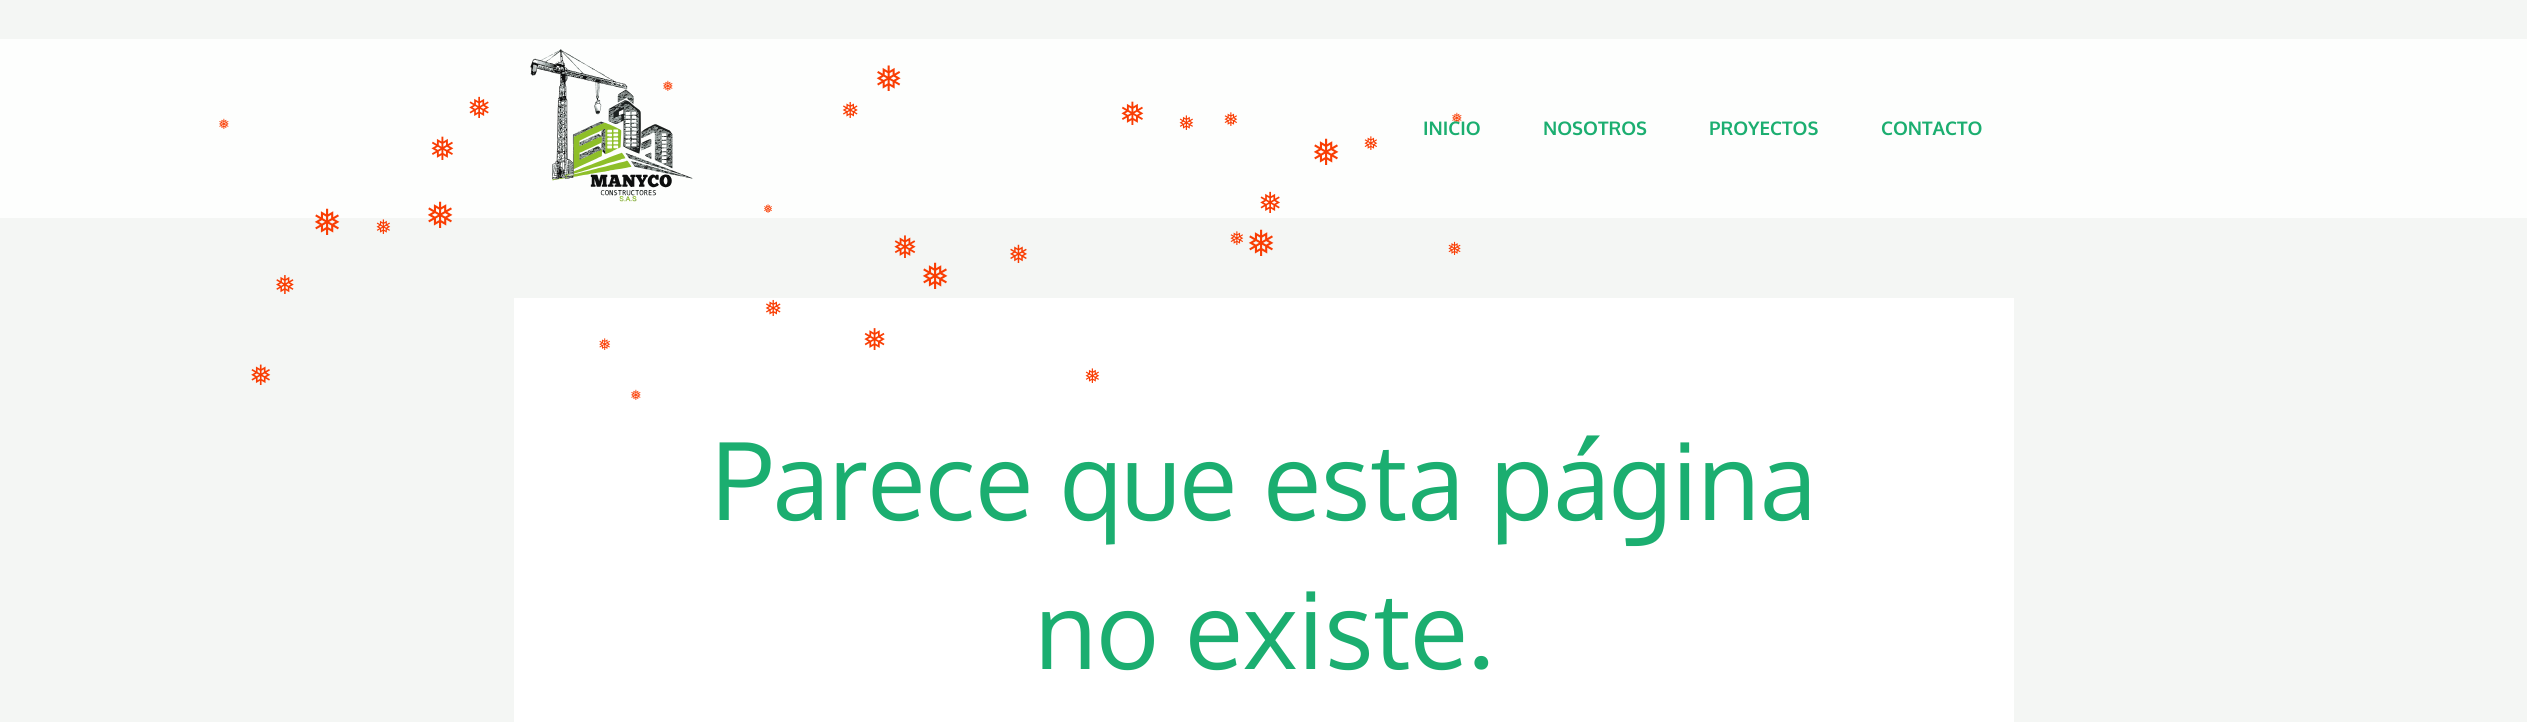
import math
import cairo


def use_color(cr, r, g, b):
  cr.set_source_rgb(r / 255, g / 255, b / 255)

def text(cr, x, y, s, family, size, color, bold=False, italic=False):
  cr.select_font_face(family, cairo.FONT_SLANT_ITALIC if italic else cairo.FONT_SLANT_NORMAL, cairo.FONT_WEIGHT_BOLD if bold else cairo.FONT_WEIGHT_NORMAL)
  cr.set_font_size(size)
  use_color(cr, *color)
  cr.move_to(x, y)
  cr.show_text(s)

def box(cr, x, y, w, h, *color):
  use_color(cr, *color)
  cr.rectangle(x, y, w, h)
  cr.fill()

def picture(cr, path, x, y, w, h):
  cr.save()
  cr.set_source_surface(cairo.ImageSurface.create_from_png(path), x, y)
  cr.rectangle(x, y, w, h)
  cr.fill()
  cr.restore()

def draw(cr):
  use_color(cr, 244, 246, 244)
  cr.paint()
  box(cr, 0, 39, 2527, 179, 253, 254, 253)
  picture(cr, "img_01.png", 530, 49, 163, 153)
  box(cr, 514, 298, 1500, 424, 255, 255, 255)
  text(cr, 662, 91, "❅", "DejaVu Sans", 14, (249, 61, 3))
  text(cr, 874, 91, "❅", "DejaVu Sans", 35, (249, 61, 3))
  text(cr, 218, 129, "❅", "DejaVu Sans", 14, (249, 61, 3))
  text(cr, 467, 118, "❅", "DejaVu Sans", 29, (249, 61, 3))
  text(cr, 841, 118, "❅", "DejaVu Sans", 22, (249, 61, 3))
  text(cr, 1119, 125, "❅", "DejaVu Sans", 32, (249, 61, 3))
  text(cr, 1178, 130, "❅", "DejaVu Sans", 20, (249, 61, 3))
  text(cr, 1223, 126, "❅", "DejaVu Sans", 18.75, (249, 61, 3))
  text(cr, 1451, 123, "❅", "DejaVu Sans", 14, (249, 61, 3))
  text(cr, 429, 160, "❅", "DejaVu Sans", 32, (249, 61, 3))
  text(cr, 1311, 165, "❅", "DejaVu Sans", 36, (249, 61, 3))
  text(cr, 1363, 150, "❅", "DejaVu Sans", 18.75, (249, 61, 3))
  text(cr, 312, 235, "❅", "DejaVu Sans", 36, (249, 61, 3))
  text(cr, 375, 234, "❅", "DejaVu Sans", 20, (249, 61, 3))
  text(cr, 425, 228, "❅", "DejaVu Sans", 36, (249, 61, 3))
  text(cr, 763, 213, "❅", "DejaVu Sans", 12, (249, 61, 3))
  text(cr, 1258, 213, "❅", "DejaVu Sans", 29, (249, 61, 3))
  text(cr, 892, 258, "❅", "DejaVu Sans", 31, (249, 61, 3))
  text(cr, 1008, 263, "❅", "DejaVu Sans", 25, (249, 61, 3))
  text(cr, 1229, 245, "❅", "DejaVu Sans", 18.75, (249, 61, 3))
  text(cr, 1246, 256, "❅", "DejaVu Sans", 36, (249, 61, 3))
  text(cr, 1447, 255, "❅", "DejaVu Sans", 18, (249, 61, 3))
  text(cr, 274, 294, "❅", "DejaVu Sans", 26, (249, 61, 3))
  text(cr, 920, 289, "❅", "DejaVu Sans", 36, (249, 61, 3))
  text(cr, 764, 316, "❅", "DejaVu Sans", 22, (249, 61, 3))
  text(cr, 598, 350, "❅", "DejaVu Sans", 16, (249, 61, 3))
  text(cr, 862, 350, "❅", "DejaVu Sans", 30, (249, 61, 3))
  text(cr, 249, 385, "❅", "DejaVu Sans", 28, (249, 61, 3))
  text(cr, 1084, 383, "❅", "DejaVu Sans", 20, (249, 61, 3))
  text(cr, 630, 400, "❅", "DejaVu Sans", 14, (249, 61, 3))
  text(cr, 1423, 135, "INICIO", "Oxygen", 18.75, (27, 174, 112), bold=True)
  text(cr, 1543, 135, "NOSOTROS", "Oxygen", 18.75, (27, 174, 112), bold=True)
  text(cr, 1709, 135, "PROYECTOS", "Oxygen", 18.75, (27, 174, 112), bold=True)
  text(cr, 1881, 135, "CONTACTO", "Oxygen", 18.75, (27, 174, 112), bold=True)
  text(cr, 712, 520, "Parece que esta página", "Oxygen", 106.25, (27, 174, 112))
  text(cr, 1035, 669, "no existe.", "Oxygen", 106.25, (27, 174, 112))


surface = cairo.ImageSurface(cairo.FORMAT_RGB24, 2527, 722)
cr = cairo.Context(surface)
options = cairo.FontOptions()
options.set_hint_metrics(cairo.HINT_METRICS_OFF)
options.set_hint_style(cairo.HINT_STYLE_NONE)
cr.set_font_options(options)
cr.set_miter_limit(4)
draw(cr)
surface.write_to_png("out.png")
